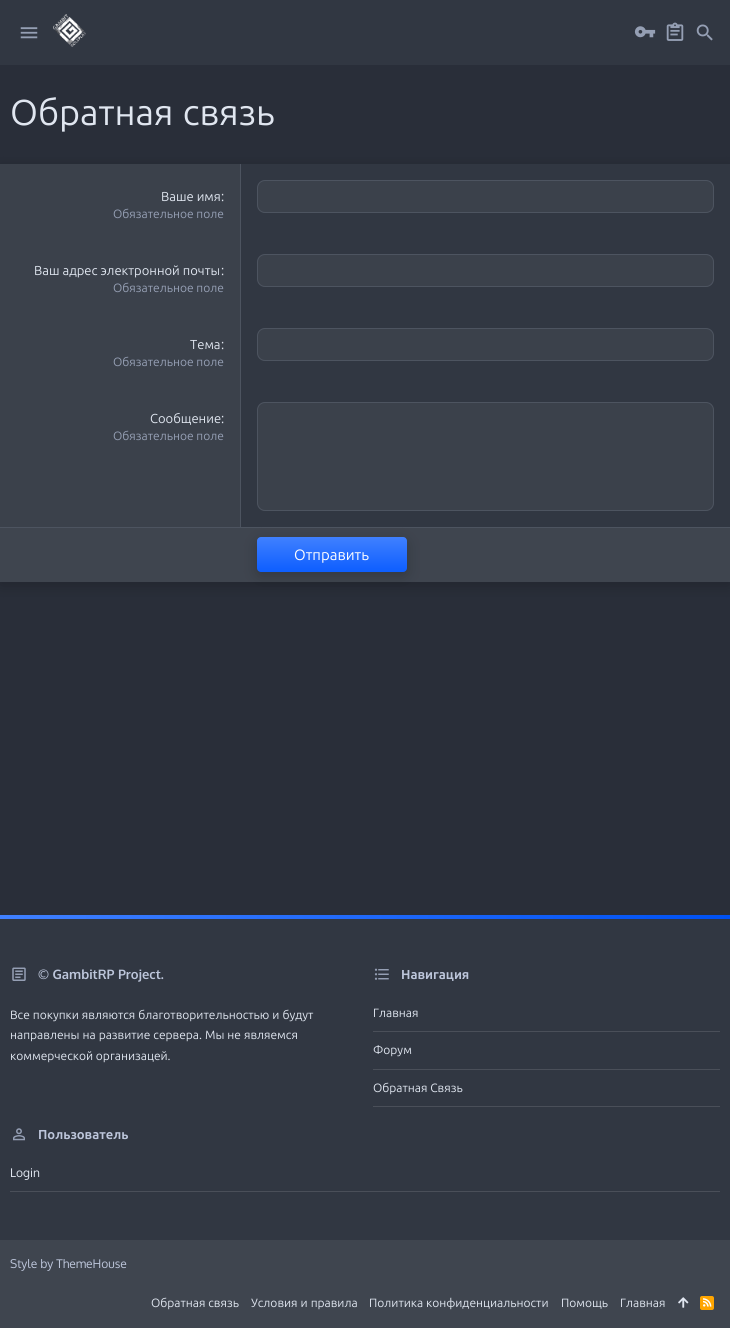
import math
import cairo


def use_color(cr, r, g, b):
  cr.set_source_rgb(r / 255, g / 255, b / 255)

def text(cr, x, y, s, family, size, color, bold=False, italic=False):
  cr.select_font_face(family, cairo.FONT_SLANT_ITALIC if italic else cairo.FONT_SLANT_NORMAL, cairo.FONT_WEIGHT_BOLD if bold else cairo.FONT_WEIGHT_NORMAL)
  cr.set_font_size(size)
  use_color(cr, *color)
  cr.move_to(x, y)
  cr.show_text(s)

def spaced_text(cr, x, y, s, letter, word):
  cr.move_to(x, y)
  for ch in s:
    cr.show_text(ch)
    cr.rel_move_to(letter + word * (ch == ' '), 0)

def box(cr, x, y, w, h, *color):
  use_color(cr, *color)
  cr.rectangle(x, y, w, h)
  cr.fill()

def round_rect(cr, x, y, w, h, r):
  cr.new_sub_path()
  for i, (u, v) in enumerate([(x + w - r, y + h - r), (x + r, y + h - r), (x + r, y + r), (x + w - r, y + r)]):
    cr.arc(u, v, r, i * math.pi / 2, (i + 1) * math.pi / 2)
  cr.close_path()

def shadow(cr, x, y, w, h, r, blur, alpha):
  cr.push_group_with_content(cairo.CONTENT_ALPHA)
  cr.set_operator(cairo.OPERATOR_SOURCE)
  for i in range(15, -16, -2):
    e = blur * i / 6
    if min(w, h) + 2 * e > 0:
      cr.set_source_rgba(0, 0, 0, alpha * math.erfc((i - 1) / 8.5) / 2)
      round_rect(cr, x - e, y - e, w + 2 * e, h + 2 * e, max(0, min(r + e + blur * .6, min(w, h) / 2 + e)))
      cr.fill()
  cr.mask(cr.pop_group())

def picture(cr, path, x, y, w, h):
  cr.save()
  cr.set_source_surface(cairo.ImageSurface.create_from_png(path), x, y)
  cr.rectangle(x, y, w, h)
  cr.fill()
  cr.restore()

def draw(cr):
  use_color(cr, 41, 46, 57)
  cr.paint()
  box(cr, 0, 0, 730, 65, 49, 55, 66)
  picture(cr, "img_01.png", 20, 27, 18, 12)
  picture(cr, "img_02.png", 53, 14, 33, 33)
  picture(cr, "img_03.png", 634, 26, 22, 12)
  picture(cr, "img_04.png", 666, 22, 18, 19)
  picture(cr, "img_05.png", 696, 24, 17, 17)
  use_color(cr, 0, 0, 0)
  shadow(cr, 0, 168, 730, 418, 0, 7.5, 0.2)
  box(cr, 241, 164, 489, 363, 49, 55, 66)
  box(cr, 0, 164, 240, 363, 59, 65, 75)
  box(cr, 240, 164, 1, 363, 77, 84, 96)
  use_color(cr, 59, 65, 75)
  round_rect(cr, 257.5, 180.5, 456, 32, 7.5)
  cr.fill_preserve()
  use_color(cr, 77, 84, 96)
  cr.set_line_width(1)
  cr.stroke()
  use_color(cr, 59, 65, 75)
  round_rect(cr, 257.5, 254.5, 456, 32, 7.5)
  cr.fill_preserve()
  use_color(cr, 77, 84, 96)
  cr.stroke()
  use_color(cr, 59, 65, 75)
  round_rect(cr, 257.5, 328.5, 456, 32, 7.5)
  cr.fill_preserve()
  use_color(cr, 77, 84, 96)
  cr.stroke()
  use_color(cr, 59, 65, 75)
  round_rect(cr, 257.5, 402.5, 456, 108, 7.5)
  cr.fill_preserve()
  use_color(cr, 77, 84, 96)
  cr.stroke()
  box(cr, 0, 528, 730, 54, 63, 69, 79)
  box(cr, 0, 527, 730, 1, 77, 84, 96)
  use_color(cr, 0, 0, 0)
  shadow(cr, 257, 541, 150, 35, 4, 7.5, 0.2)
  gradient = cairo.LinearGradient(332, 537, 332, 572)
  gradient.add_color_stop_rgba(0, 0.251, 0.502, 1, 1)
  gradient.add_color_stop_rgba(1, 0.051, 0.369, 1, 1)
  cr.set_source(gradient)
  round_rect(cr, 257, 537, 150, 35, 4)
  cr.fill()
  box(cr, 0, 1240, 730, 88, 63, 69, 79)
  box(cr, 0, 919, 730, 321, 49, 55, 66)
  gradient = cairo.LinearGradient(0, 917, 730, 917)
  gradient.add_color_stop_rgba(0, 0.251, 0.502, 1, 1)
  gradient.add_color_stop_rgba(1, 0, 0.318, 0.953, 1)
  cr.set_source(gradient)
  cr.rectangle(0, 915, 730, 4)
  cr.fill()
  picture(cr, "img_06.png", 12, 967, 14, 14)
  picture(cr, "img_07.png", 374, 968, 15, 12)
  box(cr, 373, 1031, 347, 1, 74, 79, 89)
  box(cr, 373, 1069, 347, 1, 74, 79, 89)
  box(cr, 373, 1106, 347, 1, 74, 79, 89)
  picture(cr, "img_08.png", 13, 1128, 12, 13)
  box(cr, 10, 1191, 710, 1, 74, 79, 89)
  picture(cr, "img_09.png", 678, 1297, 11, 11)
  use_color(cr, 255, 165, 0)
  round_rect(cr, 700, 1296, 14, 14, 2)
  cr.fill()
  picture(cr, "img_10.png", 703, 1298, 9, 9)
  cr.select_font_face("Ubuntu")
  cr.set_font_size(36)
  use_color(cr, 224, 230, 240)
  spaced_text(cr, 10, 125, "Обратная связь", 0, 1)
  text(cr, 161, 201, "Ваше имя", "Ubuntu", 13, (224, 230, 240))
  text(cr, 221, 201, ":", "Oxygen", 13, (224, 230, 240))
  text(cr, 113, 218, "Обязательное поле", "Ubuntu", 12, (149, 159, 180))
  text(cr, 34, 275, "Ваш адрес электронной почты", "Ubuntu", 13, (224, 230, 240))
  text(cr, 221, 275, ":", "Oxygen", 13, (224, 230, 240))
  text(cr, 113, 292, "Обязательное поле", "Ubuntu", 12, (149, 159, 180))
  text(cr, 190, 349, "Тема", "Ubuntu", 13, (224, 230, 240))
  text(cr, 221, 349, ":", "Oxygen", 13, (224, 230, 240))
  text(cr, 113, 366, "Обязательное поле", "Ubuntu", 12, (149, 159, 180))
  text(cr, 150, 423, "Сообщение", "Ubuntu", 13, (224, 230, 240))
  text(cr, 221, 423, ":", "Oxygen", 13, (224, 230, 240))
  text(cr, 113, 440, "Обязательное поле", "Ubuntu", 12, (149, 159, 180))
  text(cr, 294, 560, "Отправить", "Ubuntu", 15, (255, 255, 255))
  text(cr, 38, 979, "© GambitRP Project.", "Oxygen", 13, (189, 198, 219), bold=True)
  cr.select_font_face("Ubuntu")
  cr.set_font_size(12)
  use_color(cr, 224, 230, 240)
  spaced_text(cr, 10, 1019, "Все покупки являются благотворительностью и будут", 0, 0.25)
  spaced_text(cr, 10, 1039, "направлены на развитие сервера. Мы не являемся", 0, 0.25)
  text(cr, 10, 1060, "коммерческой организацей.", "Ubuntu", 12, (224, 230, 240))
  text(cr, 401, 979, "Навигация", "Ubuntu", 13, (189, 198, 219), bold=True)
  text(cr, 373, 1017, "Главная", "Ubuntu", 12, (224, 230, 240))
  text(cr, 373, 1054, "Форум", "Ubuntu", 12, (224, 230, 240))
  text(cr, 373, 1092, "Обратная Связь", "Ubuntu", 12, (224, 230, 240))
  text(cr, 38, 1139, "Пользователь", "Ubuntu", 13, (189, 198, 219), bold=True)
  text(cr, 10, 1177, "Login", "Oxygen", 12, (224, 230, 240))
  text(cr, 10, 1268, "Style by ThemeHouse", "Oxygen", 12, (189, 198, 219))
  text(cr, 151, 1307, "Обратная связь", "Ubuntu", 12, (224, 230, 240))
  spaced_text(cr, 251, 1307, "Условия и правила", 0, 0.25)
  text(cr, 369, 1307, "Политика конфиденциальности", "Ubuntu", 12, (224, 230, 240))
  text(cr, 561, 1307, "Помощь", "Ubuntu", 12, (224, 230, 240))
  text(cr, 620, 1307, "Главная", "Ubuntu", 12, (224, 230, 240))


surface = cairo.ImageSurface(cairo.FORMAT_RGB24, 730, 1328)
cr = cairo.Context(surface)
options = cairo.FontOptions()
options.set_hint_metrics(cairo.HINT_METRICS_OFF)
options.set_hint_style(cairo.HINT_STYLE_NONE)
cr.set_font_options(options)
cr.set_miter_limit(4)
draw(cr)
surface.write_to_png("out.png")
